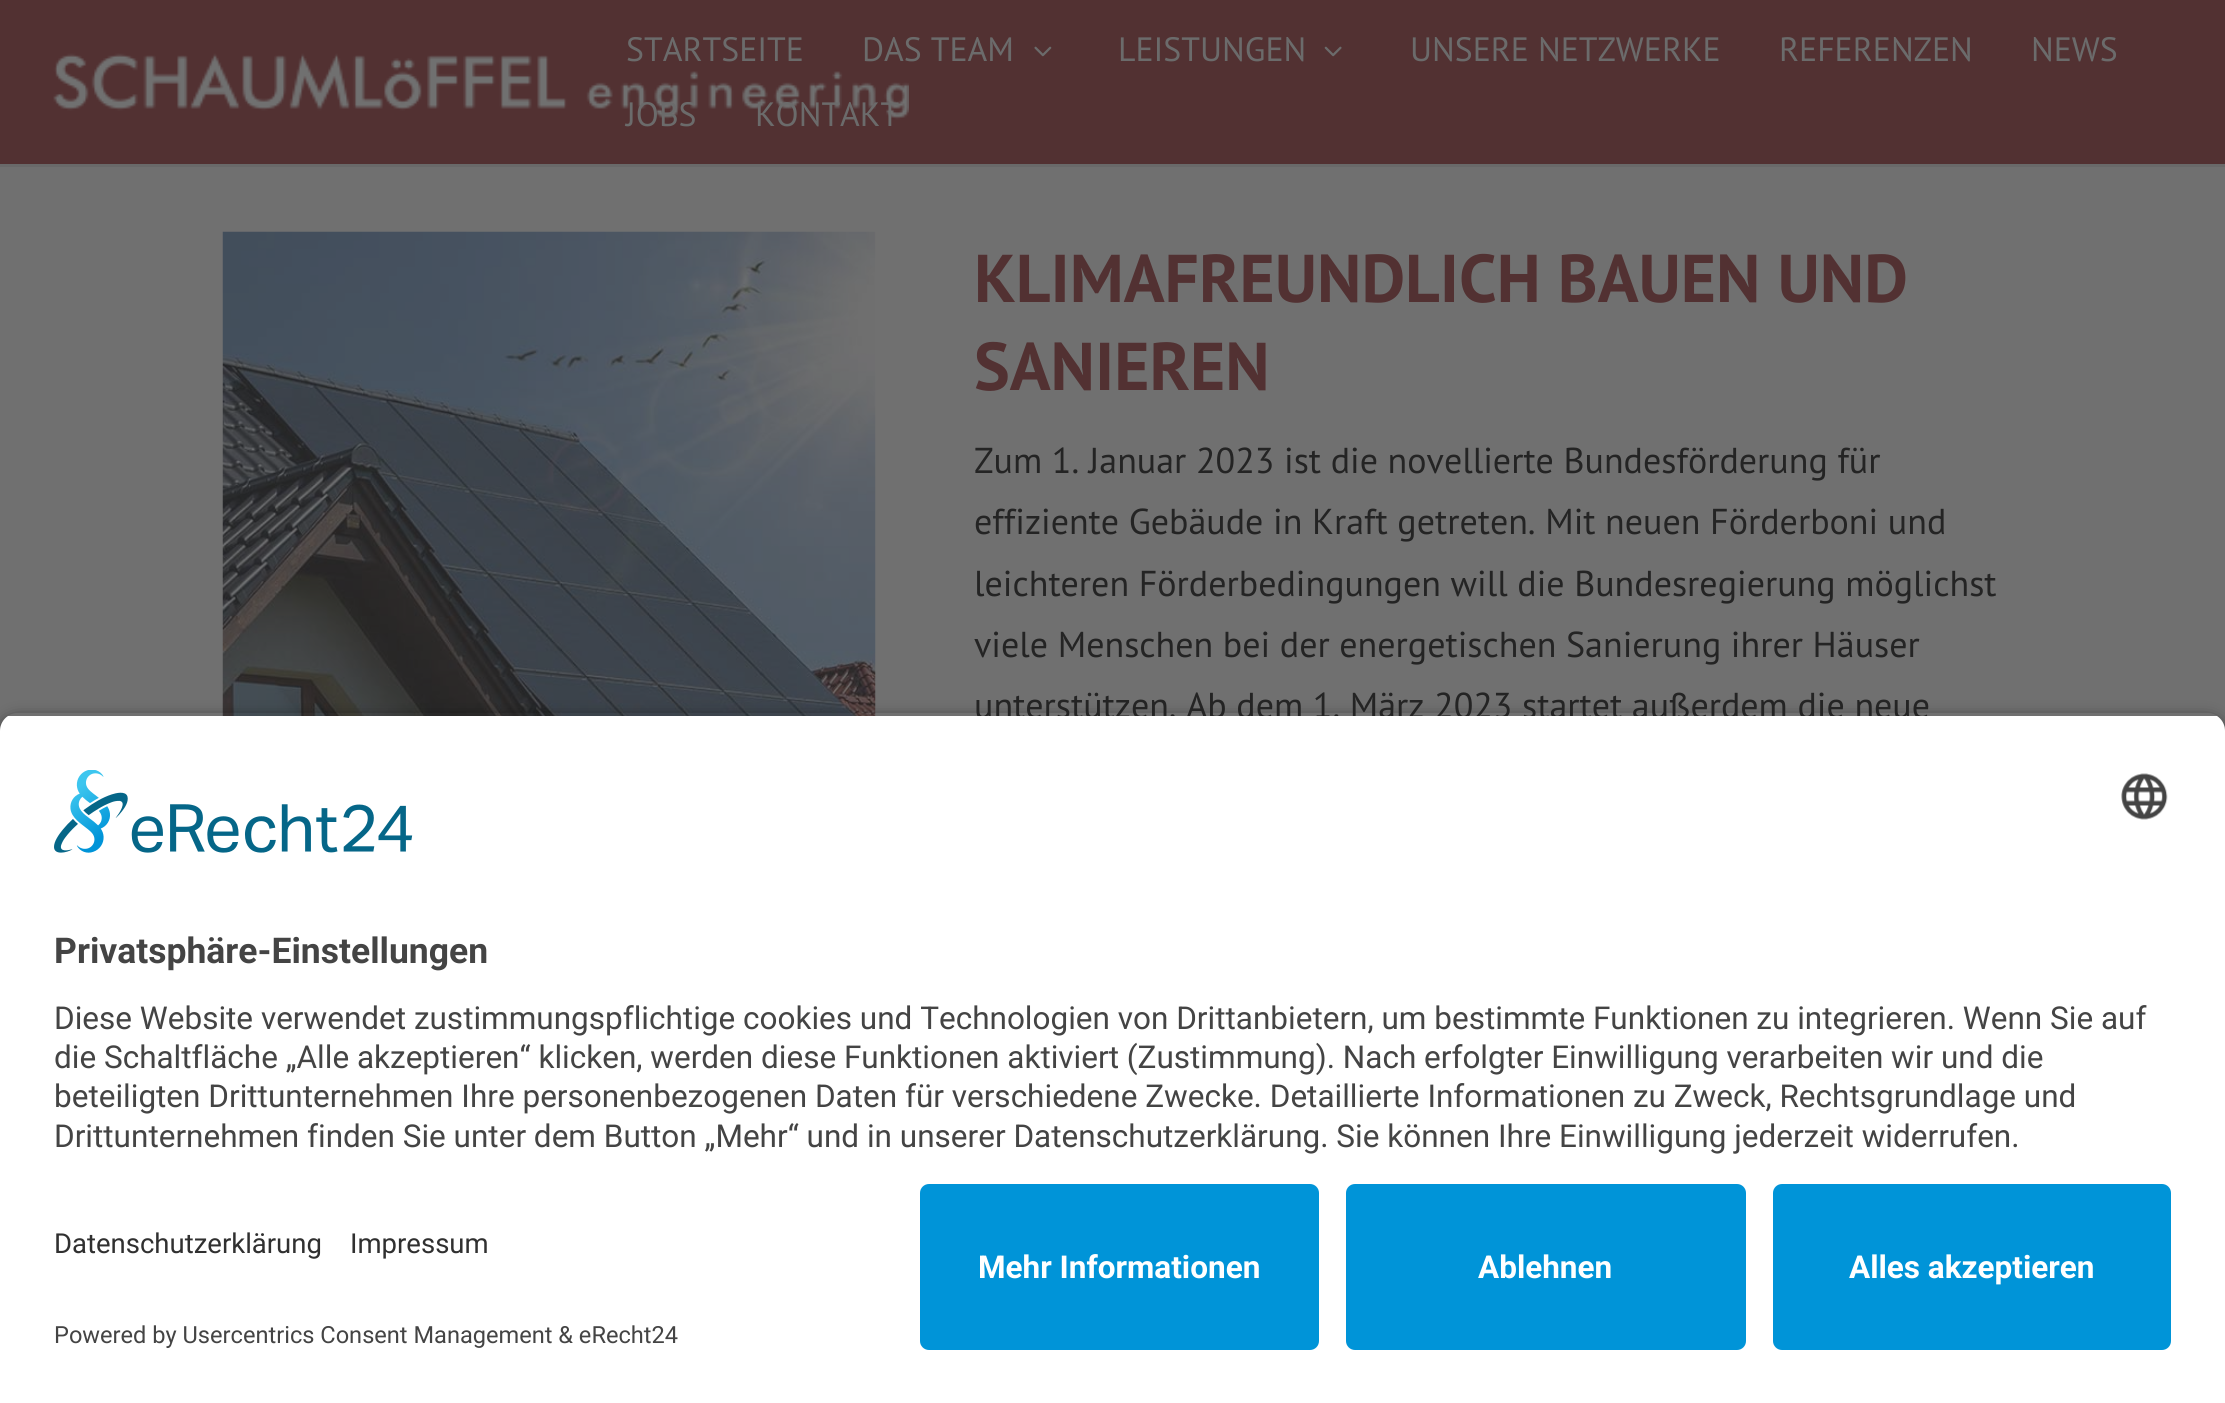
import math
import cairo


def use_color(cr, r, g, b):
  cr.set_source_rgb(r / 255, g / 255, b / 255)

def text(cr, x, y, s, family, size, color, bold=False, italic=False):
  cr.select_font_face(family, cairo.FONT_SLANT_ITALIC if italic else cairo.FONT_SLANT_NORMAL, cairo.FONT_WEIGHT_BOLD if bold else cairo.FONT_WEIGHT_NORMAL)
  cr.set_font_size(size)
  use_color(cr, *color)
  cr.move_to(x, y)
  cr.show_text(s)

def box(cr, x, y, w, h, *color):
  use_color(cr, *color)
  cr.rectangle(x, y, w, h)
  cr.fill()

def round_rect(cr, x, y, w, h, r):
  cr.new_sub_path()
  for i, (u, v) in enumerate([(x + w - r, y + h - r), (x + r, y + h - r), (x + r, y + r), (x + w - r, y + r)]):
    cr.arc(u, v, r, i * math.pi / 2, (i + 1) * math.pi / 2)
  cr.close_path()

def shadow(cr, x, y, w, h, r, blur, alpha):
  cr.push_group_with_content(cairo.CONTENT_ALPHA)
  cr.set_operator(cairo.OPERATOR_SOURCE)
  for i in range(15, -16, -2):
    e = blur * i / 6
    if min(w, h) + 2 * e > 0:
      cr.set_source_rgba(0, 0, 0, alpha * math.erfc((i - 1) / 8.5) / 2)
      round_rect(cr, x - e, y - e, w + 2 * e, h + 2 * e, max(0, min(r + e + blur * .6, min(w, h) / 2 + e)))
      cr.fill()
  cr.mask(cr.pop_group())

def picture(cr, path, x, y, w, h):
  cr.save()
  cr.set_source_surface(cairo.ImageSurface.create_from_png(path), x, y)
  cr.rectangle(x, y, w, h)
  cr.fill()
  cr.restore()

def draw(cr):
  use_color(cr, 112, 112, 112)
  cr.paint()
  box(cr, 0, 164, 2225, 3, 105, 105, 105)
  box(cr, 0, 0, 2225, 164, 82, 49, 50)
  picture(cr, "img_01.png", 53, 53, 856, 67)
  picture(cr, "img_02.png", 1034, 46, 18, 11)
  picture(cr, "img_03.png", 1324, 46, 18, 11)
  picture(cr, "img_04.png", 222, 231, 654, 485)
  cr.save()
  cr.set_fill_rule(cairo.FILL_RULE_EVEN_ODD)
  cr.new_path()
  cr.move_to(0, 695)
  cr.line_to(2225, 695)
  cr.line_to(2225, 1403)
  cr.line_to(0, 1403)
  cr.close_path()
  cr.move_to(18, 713)
  cr.line_to(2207, 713)
  cr.curve_to(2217, 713, 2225, 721, 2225, 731)
  cr.line_to(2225, 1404)
  cr.line_to(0, 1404)
  cr.line_to(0, 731)
  cr.curve_to(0, 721, 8, 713, 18, 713)
  cr.close_path()
  cr.clip()
  use_color(cr, 0, 0, 0)
  shadow(cr, 0, 720, 2225, 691, 18, 8, 0.8)
  cr.restore()
  box(cr, 0, 1166, 2225, 237, 255, 255, 255)
  use_color(cr, 0, 148, 216)
  round_rect(cr, 920, 1184, 399, 166, 9)
  cr.fill()
  round_rect(cr, 1346, 1184, 400, 166, 9)
  cr.fill()
  round_rect(cr, 1773, 1184, 398, 166, 9)
  cr.fill()
  text(cr, 626, 61, "STARTSEITE", "PT Sans", 33.75, (107, 107, 107))
  text(cr, 862, 61, "DAS TEAM", "PT Sans", 33.75, (107, 107, 107))
  text(cr, 1118, 61, "LEISTUNGEN", "PT Sans", 33.75, (107, 107, 107))
  text(cr, 1410, 61, "UNSERE NETZWERKE", "PT Sans", 33.75, (107, 107, 107))
  text(cr, 1779, 61, "REFERENZEN", "PT Sans", 33.75, (107, 107, 107))
  text(cr, 2031, 61, "NEWS", "PT Sans", 33.75, (107, 107, 107))
  text(cr, 626, 126, "JOBS", "PT Sans", 33.75, (107, 107, 107))
  text(cr, 755, 126, "KONTAKT", "PT Sans", 33.75, (107, 107, 107))
  text(cr, 974, 302, "KLIMAFREUNDLICH BAUEN UND", "PT Sans", 67.5, (82, 49, 50), bold=True)
  text(cr, 974, 390, "SANIEREN", "PT Sans", 67.5, (82, 49, 50), bold=True)
  text(cr, 974, 473, "Zum 1. Januar 2023 ist die novellierte Bundesförderung für", "PT Sans", 36, (36, 36, 36))
  text(cr, 974, 534, "effiziente Gebäude in Kraft getreten. Mit neuen Förderboni und", "PT Sans", 36, (36, 36, 36))
  text(cr, 974, 596, "leichteren Förderbedingungen will die Bundesregierung möglichst", "PT Sans", 36, (36, 36, 36))
  text(cr, 974, 657, "viele Menschen bei der energetischen Sanierung ihrer Häuser", "PT Sans", 36, (36, 36, 36))
  text(cr, 974, 718, "unterstützen. Ab dem 1. März 2023 startet außerdem die neue", "PT Sans", 36, (36, 36, 36))
  cr.save()
  cr.new_path()
  cr.move_to(18, 713)
  cr.line_to(2207, 713)
  cr.curve_to(2217, 713, 2225, 721, 2225, 731)
  cr.line_to(2225, 1166)
  cr.line_to(0, 1166)
  cr.line_to(0, 731)
  cr.curve_to(0, 721, 8, 713, 18, 713)
  cr.close_path()
  cr.clip()
  box(cr, 0, 716, 2225, 450, 255, 255, 255)
  cr.restore()
  picture(cr, "img_05.png", 54, 770, 359, 83)
  picture(cr, "img_06.png", 2121, 773, 47, 47)
  text(cr, 54, 963, "Privatsphäre-Einstellungen", "Roboto", 35.5, (68, 68, 68), bold=True)
  text(cr, 54, 1029, "Diese Website verwendet zustimmungspflichtige cookies und Technologien von Drittanbietern, um bestimmte Funktionen zu integrieren. Wenn Sie auf", "Roboto", 31.5, (68, 68, 68))
  text(cr, 54, 1068, "die Schaltfläche „Alle akzeptieren“ klicken, werden diese Funktionen aktiviert (Zustimmung). Nach erfolgter Einwilligung verarbeiten wir und die", "Roboto", 31.5, (68, 68, 68))
  text(cr, 54, 1107, "beteiligten Drittunternehmen Ihre personenbezogenen Daten für verschiedene Zwecke. Detaillierte Informationen zu Zweck, Rechtsgrundlage und", "Roboto", 31.5, (68, 68, 68))
  text(cr, 54, 1147, "Drittunternehmen finden Sie unter dem Button „Mehr“ und in unserer Datenschutzerklärung. Sie können Ihre Einwilligung jederzeit widerrufen.", "Roboto", 31.5, (68, 68, 68))
  text(cr, 54, 1253, "Datenschutzerklärung", "Roboto", 27.5, (48, 48, 48))
  text(cr, 350, 1253, "Impressum", "Roboto", 27.5, (48, 48, 48))
  text(cr, 54, 1343, "Powered by Usercentrics Consent Management & eRecht24", "Roboto", 23.6, (68, 68, 68))
  text(cr, 978, 1278, "Mehr Informationen", "Roboto", 31.5, (255, 255, 255), bold=True)
  text(cr, 1478, 1278, "Ablehnen", "Roboto", 31.5, (255, 255, 255), bold=True)
  text(cr, 1849, 1278, "Alles akzeptieren", "Roboto", 31.5, (255, 255, 255), bold=True)


surface = cairo.ImageSurface(cairo.FORMAT_RGB24, 2225, 1403)
cr = cairo.Context(surface)
options = cairo.FontOptions()
options.set_hint_metrics(cairo.HINT_METRICS_OFF)
options.set_hint_style(cairo.HINT_STYLE_NONE)
cr.set_font_options(options)
cr.set_miter_limit(4)
draw(cr)
surface.write_to_png("out.png")
